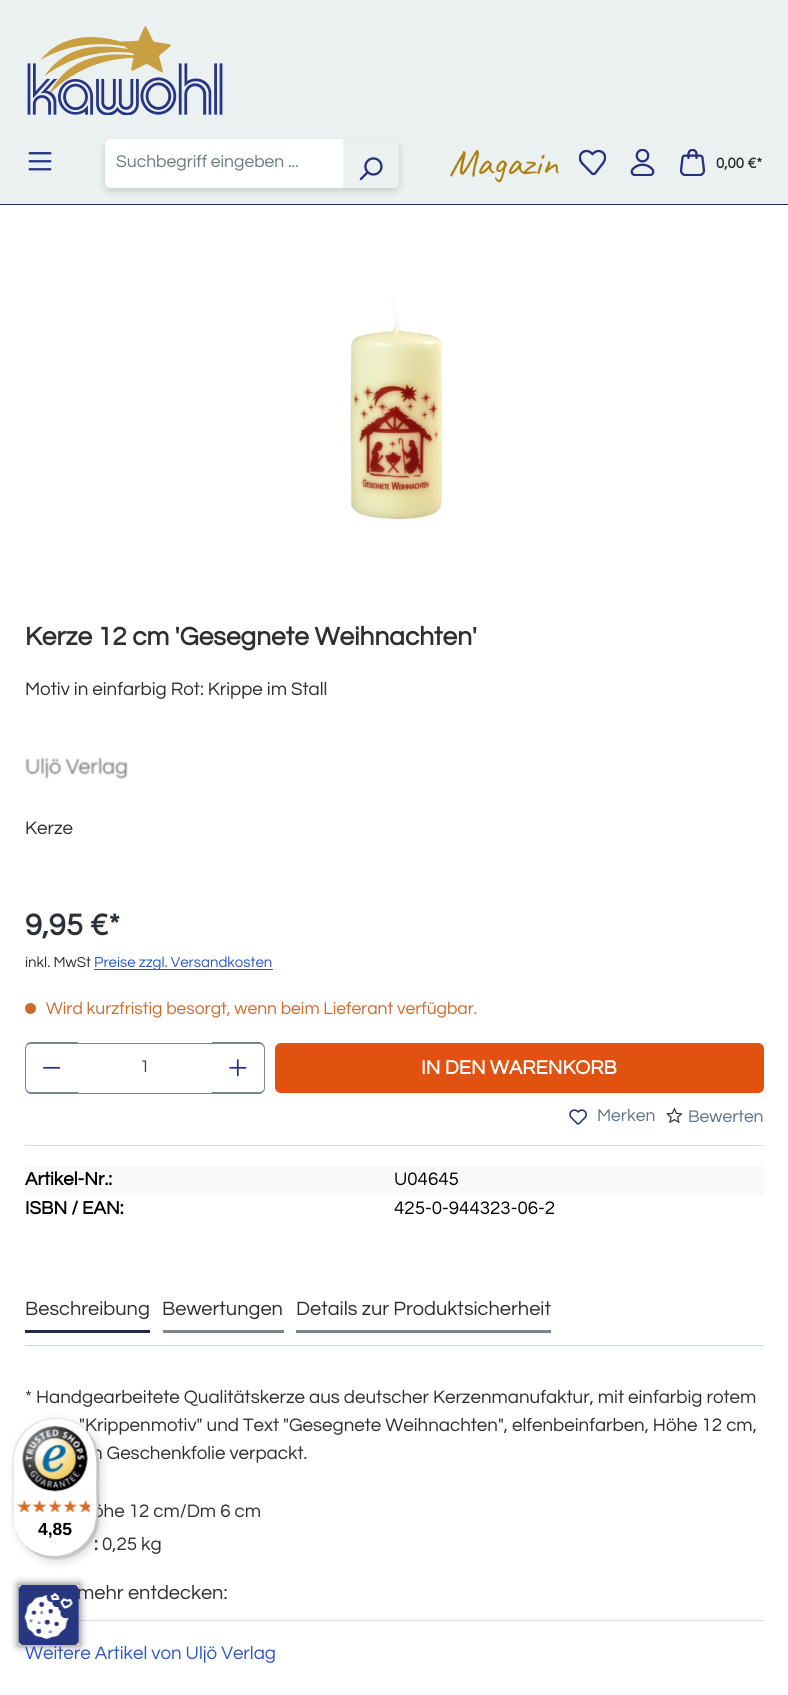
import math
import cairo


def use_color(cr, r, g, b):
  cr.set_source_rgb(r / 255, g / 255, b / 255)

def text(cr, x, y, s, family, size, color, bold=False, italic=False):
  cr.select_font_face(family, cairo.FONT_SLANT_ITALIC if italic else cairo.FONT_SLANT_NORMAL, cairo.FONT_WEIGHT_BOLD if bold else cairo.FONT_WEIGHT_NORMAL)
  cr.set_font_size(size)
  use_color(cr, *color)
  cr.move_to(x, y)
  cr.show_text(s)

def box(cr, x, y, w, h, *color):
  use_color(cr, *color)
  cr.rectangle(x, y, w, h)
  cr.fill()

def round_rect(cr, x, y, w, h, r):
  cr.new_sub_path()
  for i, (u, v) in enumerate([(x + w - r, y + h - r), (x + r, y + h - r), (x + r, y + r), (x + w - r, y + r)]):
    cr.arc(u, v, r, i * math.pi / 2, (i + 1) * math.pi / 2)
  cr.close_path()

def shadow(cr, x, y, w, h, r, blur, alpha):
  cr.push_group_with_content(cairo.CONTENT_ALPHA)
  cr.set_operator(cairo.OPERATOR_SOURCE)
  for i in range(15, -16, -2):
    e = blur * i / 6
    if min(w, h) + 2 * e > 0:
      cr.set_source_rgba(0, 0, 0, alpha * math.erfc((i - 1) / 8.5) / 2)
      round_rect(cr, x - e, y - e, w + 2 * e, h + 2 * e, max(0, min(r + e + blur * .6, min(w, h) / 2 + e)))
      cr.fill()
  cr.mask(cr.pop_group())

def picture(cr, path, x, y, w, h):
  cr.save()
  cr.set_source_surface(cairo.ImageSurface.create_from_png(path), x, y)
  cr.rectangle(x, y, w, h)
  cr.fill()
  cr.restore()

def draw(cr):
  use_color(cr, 255, 255, 255)
  cr.paint()
  box(cr, 0, 0, 788, 204, 235, 241, 241)
  picture(cr, "img_01.png", 27, 26, 196, 89)
  picture(cr, "img_02.png", 28, 152, 24, 19)
  cr.save()
  cr.set_fill_rule(cairo.FILL_RULE_EVEN_ODD)
  cr.new_path()
  cr.move_to(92, 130)
  cr.line_to(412, 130)
  cr.line_to(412, 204)
  cr.line_to(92, 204)
  cr.close_path()
  cr.move_to(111, 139)
  cr.line_to(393, 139)
  cr.curve_to(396.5, 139, 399, 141.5, 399, 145)
  cr.line_to(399, 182)
  cr.curve_to(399, 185.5, 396.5, 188, 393, 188)
  cr.line_to(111, 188)
  cr.curve_to(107.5, 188, 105, 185.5, 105, 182)
  cr.line_to(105, 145)
  cr.curve_to(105, 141.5, 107.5, 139, 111, 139)
  cr.close_path()
  cr.clip()
  use_color(cr, 0, 0, 0)
  shadow(cr, 105, 143, 294, 48, 6, 4, 0.16)
  cr.restore()
  use_color(cr, 255, 255, 255)
  cr.new_path()
  cr.move_to(111, 139)
  cr.line_to(343, 139)
  cr.line_to(343, 188)
  cr.line_to(111, 188)
  cr.curve_to(107.5, 188, 105, 185.5, 105, 182)
  cr.line_to(105, 145)
  cr.curve_to(105, 141.5, 107.5, 139, 111, 139)
  cr.close_path()
  cr.fill()
  picture(cr, "img_03.png", 359, 157, 24, 24)
  picture(cr, "img_04.png", 579, 149, 27, 27)
  picture(cr, "img_05.png", 630, 149, 25, 27)
  picture(cr, "img_06.png", 679, 149, 27, 27)
  box(cr, 0, 204, 788, 1, 32, 42, 79)
  picture(cr, "img_07.png", 350, 297, 93, 223)
  picture(cr, "img_08.png", 25, 757, 103, 22)
  box(cr, 94, 969, 179, 1, 43, 86, 198)
  use_color(cr, 204, 107, 46)
  cr.arc(30.5, 1008.5, 5.5, 0, 2 * math.pi)
  cr.fill()
  box(cr, 25, 1145, 739, 1, 218, 218, 229)
  box(cr, 76, 1043, 138, 1, 121, 132, 144)
  box(cr, 76, 1093, 138, 1, 121, 132, 144)
  cr.set_fill_rule(cairo.FILL_RULE_EVEN_ODD)
  cr.new_path()
  cr.move_to(31, 1042)
  cr.line_to(78, 1042)
  cr.line_to(78, 1094)
  cr.line_to(31, 1094)
  cr.curve_to(28, 1094, 25, 1091, 25, 1088)
  cr.line_to(25, 1049)
  cr.curve_to(25, 1045, 28, 1042, 31, 1042)
  cr.close_path()
  cr.move_to(31, 1044)
  cr.line_to(78, 1044)
  cr.line_to(78, 1092)
  cr.line_to(31, 1092)
  cr.curve_to(28, 1092, 26, 1090, 26, 1088)
  cr.line_to(26, 1049)
  cr.curve_to(26, 1046, 28, 1044, 31, 1044)
  cr.close_path()
  cr.fill()
  picture(cr, "img_09.png", 43, 1066, 18, 3)
  cr.new_path()
  cr.move_to(212, 1042)
  cr.line_to(259, 1042)
  cr.curve_to(262, 1042, 265, 1045, 265, 1049)
  cr.line_to(265, 1088)
  cr.curve_to(265, 1091, 262, 1094, 259, 1094)
  cr.line_to(212, 1094)
  cr.close_path()
  cr.move_to(212, 1044)
  cr.line_to(259, 1044)
  cr.curve_to(262, 1044, 264, 1046, 264, 1049)
  cr.line_to(264, 1088)
  cr.curve_to(264, 1090, 262, 1092, 259, 1092)
  cr.line_to(212, 1092)
  cr.close_path()
  cr.fill()
  picture(cr, "img_10.png", 229, 1059, 18, 18)
  use_color(cr, 225, 82, 17)
  round_rect(cr, 275.5, 1043.5, 488, 49, 5.5)
  cr.fill_preserve()
  cr.set_line_width(1)
  cr.stroke()
  picture(cr, "img_11.png", 569, 1109, 18, 16)
  picture(cr, "img_12.png", 666, 1107, 17, 17)
  box(cr, 25, 1166, 739, 29, 249, 249, 249)
  box(cr, 25, 1345, 739, 1, 197, 216, 223)
  box(cr, 25, 1330, 125, 3, 32, 42, 79)
  box(cr, 163, 1330, 121, 3, 121, 132, 144)
  box(cr, 296, 1330, 255, 3, 121, 132, 144)
  box(cr, 78, 1620, 686, 1, 218, 218, 229)
  use_color(cr, 0, 0, 0)
  shadow(cr, 16, 1421, 85, 140, 42.5, 5, 0.15)
  shadow(cr, 14, 1419, 85, 140, 42.5, 1, 0.15)
  cr.save()
  cr.new_path()
  cr.move_to(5, 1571)
  cr.line_to(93, 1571)
  cr.line_to(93, 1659)
  cr.line_to(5, 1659)
  cr.close_path()
  cr.move_to(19, 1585)
  cr.line_to(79, 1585)
  cr.line_to(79, 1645)
  cr.line_to(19, 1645)
  cr.close_path()
  cr.clip()
  shadow(cr, 18, 1584, 62, 62, 0, 4, 0.5)
  cr.restore()
  text(cr, 116, 167, "Suchbegriff eingeben ...", "Questrial", 17.5, (107, 121, 122))
  text(cr, 449, 175, "Magazin", "Caveat", 37.5, (174, 127, 17))
  text(cr, 716, 168, "0,00 €*", "Questrial", 15, (46, 46, 46), bold=True)
  text(cr, 25, 645, "Kerze 12 cm 'Gesegnete Weihnachten'", "Questrial", 26.25, (46, 46, 46), bold=True)
  text(cr, 25, 695, "Motiv in einfarbig Rot: Krippe im Stall", "Questrial", 18.75, (46, 46, 46))
  text(cr, 25, 834, "Kerze", "Questrial", 18.75, (46, 46, 46))
  text(cr, 25, 935, "9,95 €*", "Questrial", 31, (43, 49, 54), bold=True)
  text(cr, 25, 967, "inkl. MwSt", "Questrial", 15, (46, 46, 46))
  text(cr, 94, 967, "Preise zzgl. Versandkosten", "Questrial", 15, (43, 86, 198))
  text(cr, 46, 1014, "Wird kurzfristig besorgt, wenn beim Lieferant verfügbar.", "Questrial", 17.5, (204, 107, 46))
  text(cr, 140, 1072, "1", "Questrial", 17.5, (61, 69, 67))
  text(cr, 421, 1074, "IN DEN WARENKORB", "Questrial", 20, (255, 255, 255), bold=True)
  text(cr, 597, 1121, "Merken", "Questrial", 17.5, (95, 114, 133))
  text(cr, 688, 1122, "Bewerten", "Questrial", 17.5, (95, 114, 133))
  text(cr, 25, 1185, "Artikel-Nr.:", "Questrial", 18.75, (0, 0, 0), bold=True)
  text(cr, 394, 1185, "U04645", "Questrial", 18.75, (0, 0, 0))
  text(cr, 25, 1214, "ISBN / EAN:", "Questrial", 18.75, (0, 0, 0), bold=True)
  text(cr, 394, 1214, "425-0-944323-06-2", "Questrial", 18.75, (0, 0, 0))
  text(cr, 25, 1315, "Beschreibung", "Questrial", 20, (46, 46, 46))
  text(cr, 162, 1315, "Bewertungen", "Questrial", 20, (46, 46, 46))
  text(cr, 296, 1315, "Details zur Produktsicherheit", "Questrial", 20, (46, 46, 46))
  text(cr, 25, 1403, "* Handgearbeitete Qualitätskerze aus deutscher Kerzenmanufaktur, mit einfarbig rotem", "Questrial", 18.75, (46, 46, 46))
  text(cr, 79, 1431, "\"Krippenmotiv\" und Text \"Gesegnete Weihnachten\", elfenbeinfarben, Höhe 12 cm,", "Questrial", 18.75, (46, 46, 46))
  text(cr, 92, 1459, "n Geschenkfolie verpackt.", "Questrial", 18.75, (46, 46, 46))
  text(cr, 93, 1517, "öhe 12 cm/Dm 6 cm", "Questrial", 18.75, (46, 46, 46))
  text(cr, 94, 1550, ":", "Questrial", 18.75, (46, 46, 46), bold=True)
  text(cr, 102, 1550, "0,25 kg", "Questrial", 18.75, (46, 46, 46))
  text(cr, 77, 1599, "mehr entdecken:", "Questrial", 20, (46, 46, 46))
  text(cr, 25, 1659, "Weitere Artikel von Uljö Verlag", "Questrial", 18.75, (43, 86, 198))
  use_color(cr, 255, 255, 255)
  round_rect(cr, 13, 1418, 85, 140, 42.5)
  cr.fill()
  cr.set_source_rgba(0, 0, 0, 0.1)
  cr.set_fill_rule(cairo.FILL_RULE_WINDING)
  cr.new_path()
  cr.move_to(56, 1419)
  cr.curve_to(68, 1419, 78, 1423, 86, 1431)
  cr.curve_to(65, 1409, 28, 1416, 16, 1444)
  cr.curve_to(11, 1456, 13, 1474, 13, 1488)
  cr.curve_to(13, 1509, 10, 1530, 26, 1546)
  cr.curve_to(18, 1538, 14, 1528, 14, 1516)
  cr.line_to(14, 1461)
  cr.curve_to(14, 1438, 33, 1419, 56, 1419)
  cr.close_path()
  cr.fill()
  cr.set_source_rgba(0, 0, 0, 0.2)
  cr.new_path()
  cr.move_to(25, 1545)
  cr.curve_to(45, 1567, 83, 1560, 95, 1532)
  cr.curve_to(100, 1520, 98, 1502, 98, 1488)
  cr.curve_to(98, 1467, 102, 1445, 85, 1430)
  cr.curve_to(99, 1445, 96, 1467, 96, 1486)
  cr.curve_to(96, 1500, 98, 1518, 93, 1530)
  cr.curve_to(81, 1558, 46, 1564, 25, 1545)
  cr.close_path()
  cr.fill()
  cr.set_source_rgba(0.196, 0.196, 0.196, 0.2)
  cr.new_path()
  cr.move_to(25, 1546)
  cr.curve_to(46, 1566, 83, 1560, 95, 1532)
  cr.curve_to(100, 1520, 98, 1502, 98, 1488)
  cr.curve_to(98, 1467, 101, 1446, 86, 1430)
  cr.curve_to(93, 1438, 97, 1448, 97, 1459)
  cr.line_to(97, 1514)
  cr.curve_to(97, 1538, 78, 1557, 54, 1557)
  cr.curve_to(43, 1557, 33, 1553, 25, 1546)
  cr.close_path()
  cr.fill()
  cr.set_source_rgba(1, 1, 1, 0.3)
  cr.new_path()
  cr.move_to(25, 1546)
  cr.curve_to(46, 1566, 83, 1560, 95, 1532)
  cr.curve_to(100, 1520, 98, 1502, 98, 1488)
  cr.curve_to(98, 1467, 101, 1446, 86, 1430)
  cr.curve_to(93, 1438, 97, 1448, 97, 1459)
  cr.line_to(97, 1514)
  cr.curve_to(97, 1538, 78, 1557, 54, 1557)
  cr.curve_to(43, 1557, 33, 1553, 25, 1546)
  cr.close_path()
  cr.fill()
  picture(cr, "img_13.png", 22, 1426, 66, 66)
  picture(cr, "img_14.png", 17, 1500, 14, 13)
  picture(cr, "img_15.png", 34, 1500, 12, 12)
  picture(cr, "img_16.png", 49, 1500, 12, 13)
  picture(cr, "img_17.png", 64, 1500, 14, 12)
  picture(cr, "img_18.png", 79, 1500, 14, 13)
  picture(cr, "img_19.png", 17, 1500, 15, 12)
  picture(cr, "img_20.png", 32, 1500, 15, 12)
  picture(cr, "img_21.png", 48, 1500, 14, 12)
  picture(cr, "img_22.png", 63, 1500, 14, 12)
  picture(cr, "img_23.png", 78, 1500, 12, 12)
  text(cr, 38, 1535, "4,85", "Liberation Sans", 17.5, (0, 0, 0), bold=True)
  picture(cr, "img_24.png", 18, 1585, 61, 60)


surface = cairo.ImageSurface(cairo.FORMAT_RGB24, 788, 1695)
cr = cairo.Context(surface)
options = cairo.FontOptions()
options.set_hint_metrics(cairo.HINT_METRICS_OFF)
options.set_hint_style(cairo.HINT_STYLE_NONE)
cr.set_font_options(options)
cr.set_miter_limit(4)
draw(cr)
surface.write_to_png("out.png")
